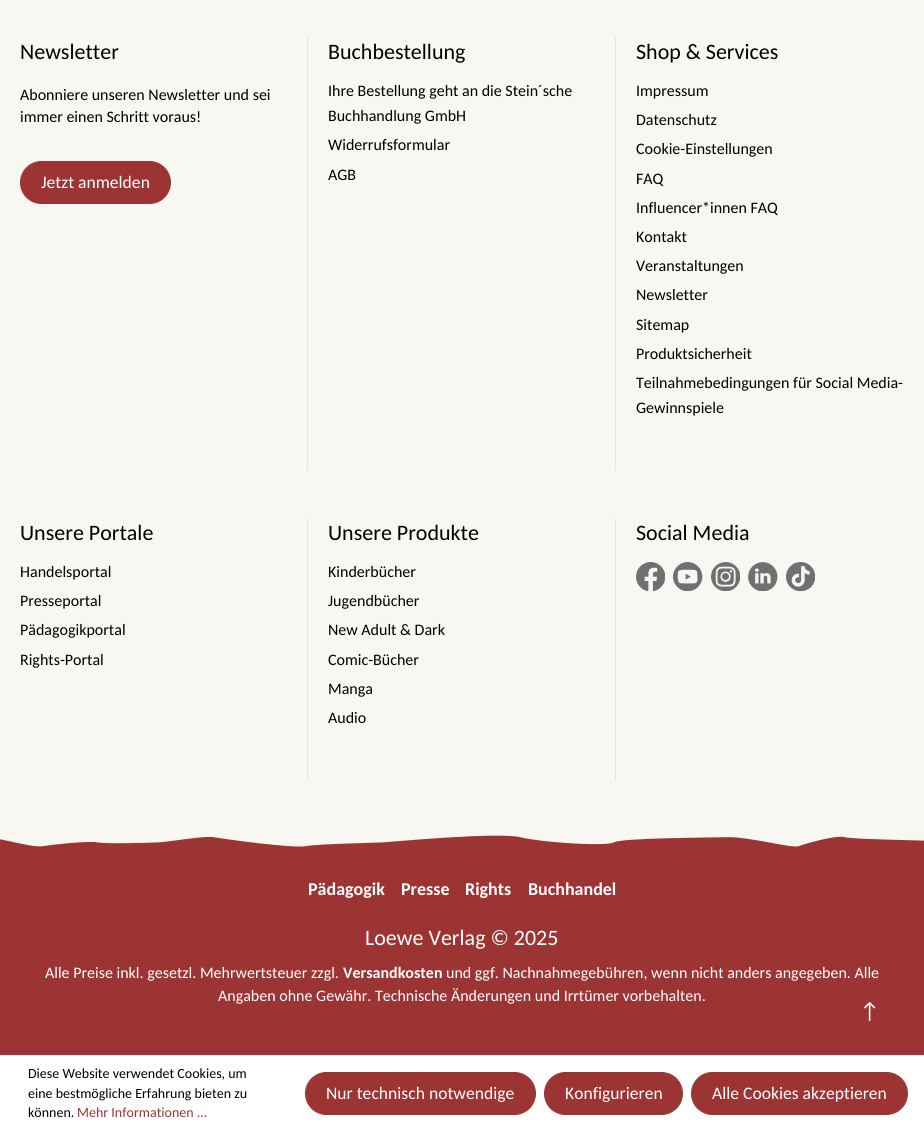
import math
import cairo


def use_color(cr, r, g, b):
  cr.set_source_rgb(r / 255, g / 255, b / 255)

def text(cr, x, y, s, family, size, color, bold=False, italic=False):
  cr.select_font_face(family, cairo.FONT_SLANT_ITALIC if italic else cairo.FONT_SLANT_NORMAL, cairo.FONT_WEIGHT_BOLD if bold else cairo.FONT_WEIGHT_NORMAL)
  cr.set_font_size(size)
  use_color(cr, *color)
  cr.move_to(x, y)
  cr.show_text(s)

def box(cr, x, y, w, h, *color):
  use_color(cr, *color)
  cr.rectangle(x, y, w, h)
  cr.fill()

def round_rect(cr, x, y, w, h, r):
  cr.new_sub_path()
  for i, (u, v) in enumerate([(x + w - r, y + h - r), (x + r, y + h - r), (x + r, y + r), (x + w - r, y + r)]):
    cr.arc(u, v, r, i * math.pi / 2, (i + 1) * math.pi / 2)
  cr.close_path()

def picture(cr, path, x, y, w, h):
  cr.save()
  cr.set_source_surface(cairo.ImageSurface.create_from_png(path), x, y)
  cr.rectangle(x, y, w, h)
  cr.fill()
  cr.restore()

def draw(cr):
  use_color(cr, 248, 247, 242)
  cr.paint()
  box(cr, 307, 37, 1, 433, 228, 228, 229)
  use_color(cr, 157, 52, 52)
  round_rect(cr, 20.5, 161.5, 150, 42, 21)
  cr.fill_preserve()
  cr.set_line_width(1)
  cr.stroke()
  box(cr, 615, 37, 1, 433, 228, 228, 229)
  box(cr, 307, 518, 1, 262, 228, 228, 229)
  box(cr, 615, 518, 1, 262, 228, 228, 229)
  picture(cr, "img_01.png", 636, 562, 29, 29)
  picture(cr, "img_02.png", 673, 562, 30, 29)
  picture(cr, "img_03.png", 711, 562, 29, 29)
  picture(cr, "img_04.png", 748, 562, 30, 29)
  picture(cr, "img_05.png", 786, 562, 29, 29)
  box(cr, 0, 835, 924, 220, 157, 52, 52)
  picture(cr, "img_06.png", 0, 832, 924, 15)
  picture(cr, "img_07.png", 864, 1002, 12, 19)
  box(cr, 0, 1056, 924, 75, 255, 255, 255)
  box(cr, 0, 1055, 924, 1, 228, 228, 229)
  use_color(cr, 157, 52, 52)
  round_rect(cr, 305.5, 1072.5, 230, 42, 21)
  cr.fill_preserve()
  cr.stroke()
  round_rect(cr, 544.5, 1072.5, 138, 42, 21)
  cr.fill_preserve()
  cr.stroke()
  round_rect(cr, 691.5, 1072.5, 216, 42, 21)
  cr.fill_preserve()
  cr.stroke()
  text(cr, 20, 59, "Newsletter", "Carlito", 22, (0, 0, 0))
  text(cr, 20, 100, "Abonniere unseren Newsletter und sei", "Carlito", 16, (0, 0, 0))
  text(cr, 20, 122, "immer einen Schritt voraus!", "Carlito", 16, (0, 0, 0))
  text(cr, 41, 188, "Jetzt anmelden", "Carlito", 17.6, (255, 255, 255))
  text(cr, 328, 59, "Buchbestellung", "Carlito", 22, (0, 0, 0))
  text(cr, 328, 96, "Ihre Bestellung geht an die Stein´sche", "Carlito", 16, (0, 0, 0))
  text(cr, 328, 121, "Buchhandlung GmbH", "Carlito", 16, (0, 0, 0))
  text(cr, 328, 150, "Widerrufsformular", "Carlito", 16, (0, 0, 0))
  text(cr, 328, 180, "AGB", "Carlito", 16, (0, 0, 0))
  text(cr, 636, 59, "Shop & Services", "Carlito", 22, (0, 0, 0))
  text(cr, 636, 96, "Impressum", "Carlito", 16, (0, 0, 0))
  text(cr, 636, 125, "Datenschutz", "Carlito", 16, (0, 0, 0))
  text(cr, 636, 154, "Cookie-Einstellungen", "Carlito", 16, (0, 0, 0))
  text(cr, 636, 184, "FAQ", "Carlito", 16, (0, 0, 0))
  text(cr, 636, 213, "Influencer*innen FAQ", "Carlito", 16, (0, 0, 0))
  text(cr, 636, 242, "Kontakt", "Carlito", 16, (0, 0, 0))
  text(cr, 636, 271, "Veranstaltungen", "Carlito", 16, (0, 0, 0))
  text(cr, 636, 300, "Newsletter", "Carlito", 16, (0, 0, 0))
  text(cr, 636, 330, "Sitemap", "Carlito", 16, (0, 0, 0))
  text(cr, 636, 359, "Produktsicherheit", "Carlito", 16, (0, 0, 0))
  text(cr, 636, 388, "Teilnahmebedingungen für Social Media-", "Carlito", 16, (0, 0, 0))
  text(cr, 636, 413, "Gewinnspiele", "Carlito", 16, (0, 0, 0))
  text(cr, 20, 540, "Unsere Portale", "Carlito", 22, (0, 0, 0))
  text(cr, 20, 577, "Handelsportal", "Carlito", 16, (0, 0, 0))
  text(cr, 20, 606, "Presseportal", "Carlito", 16, (0, 0, 0))
  text(cr, 20, 635, "Pädagogikportal", "Carlito", 16, (0, 0, 0))
  text(cr, 20, 665, "Rights-Portal", "Carlito", 16, (0, 0, 0))
  text(cr, 328, 540, "Unsere Produkte", "Carlito", 22, (0, 0, 0))
  text(cr, 328, 577, "Kinderbücher", "Carlito", 16, (0, 0, 0))
  text(cr, 328, 606, "Jugendbücher", "Carlito", 16, (0, 0, 0))
  text(cr, 328, 635, "New Adult & Dark", "Carlito", 16, (0, 0, 0))
  text(cr, 328, 665, "Comic-Bücher", "Carlito", 16, (0, 0, 0))
  text(cr, 328, 694, "Manga", "Carlito", 16, (0, 0, 0))
  text(cr, 328, 723, "Audio", "Carlito", 16, (0, 0, 0))
  text(cr, 636, 540, "Social Media", "Carlito", 22, (0, 0, 0))
  text(cr, 308, 895, "Pädagogik", "Carlito", 18, (255, 255, 255), bold=True)
  text(cr, 401, 895, "Presse", "Carlito", 18, (255, 255, 255), bold=True)
  text(cr, 465, 895, "Rights", "Carlito", 18, (255, 255, 255), bold=True)
  text(cr, 528, 895, "Buchhandel", "Carlito", 18, (255, 255, 255), bold=True)
  text(cr, 365, 945, "Loewe Verlag © 2025", "Carlito", 22, (255, 255, 255))
  text(cr, 45, 978, "Alle Preise inkl. gesetzl. Mehrwertsteuer zzgl.", "Carlito", 16, (255, 255, 255))
  text(cr, 343, 978, "Versandkosten", "Carlito", 16, (255, 255, 255), bold=True)
  text(cr, 446, 978, "und ggf. Nachnahmegebühren, wenn nicht anders angegeben. Alle", "Carlito", 16, (255, 255, 255))
  text(cr, 218, 1001, "Angaben ohne Gewähr. Technische Änderungen und Irrtümer vorbehalten.", "Carlito", 16, (255, 255, 255))
  text(cr, 28, 1078, "Diese Website verwendet Cookies, um", "Carlito", 14, (0, 0, 0))
  text(cr, 28, 1098, "eine bestmögliche Erfahrung bieten zu", "Carlito", 14, (0, 0, 0))
  text(cr, 28, 1117, "können.", "Carlito", 14, (0, 0, 0))
  text(cr, 77, 1117, "Mehr Informationen ...", "Carlito", 14, (157, 52, 52))
  text(cr, 326, 1099, "Nur technisch notwendige", "Carlito", 17.6, (255, 255, 255))
  text(cr, 565, 1099, "Konfigurieren", "Carlito", 17.6, (255, 255, 255))
  text(cr, 712, 1099, "Alle Cookies akzeptieren", "Carlito", 17.6, (255, 255, 255))


surface = cairo.ImageSurface(cairo.FORMAT_RGB24, 924, 1131)
cr = cairo.Context(surface)
options = cairo.FontOptions()
options.set_hint_metrics(cairo.HINT_METRICS_OFF)
options.set_hint_style(cairo.HINT_STYLE_NONE)
cr.set_font_options(options)
cr.set_miter_limit(4)
draw(cr)
surface.write_to_png("out.png")
